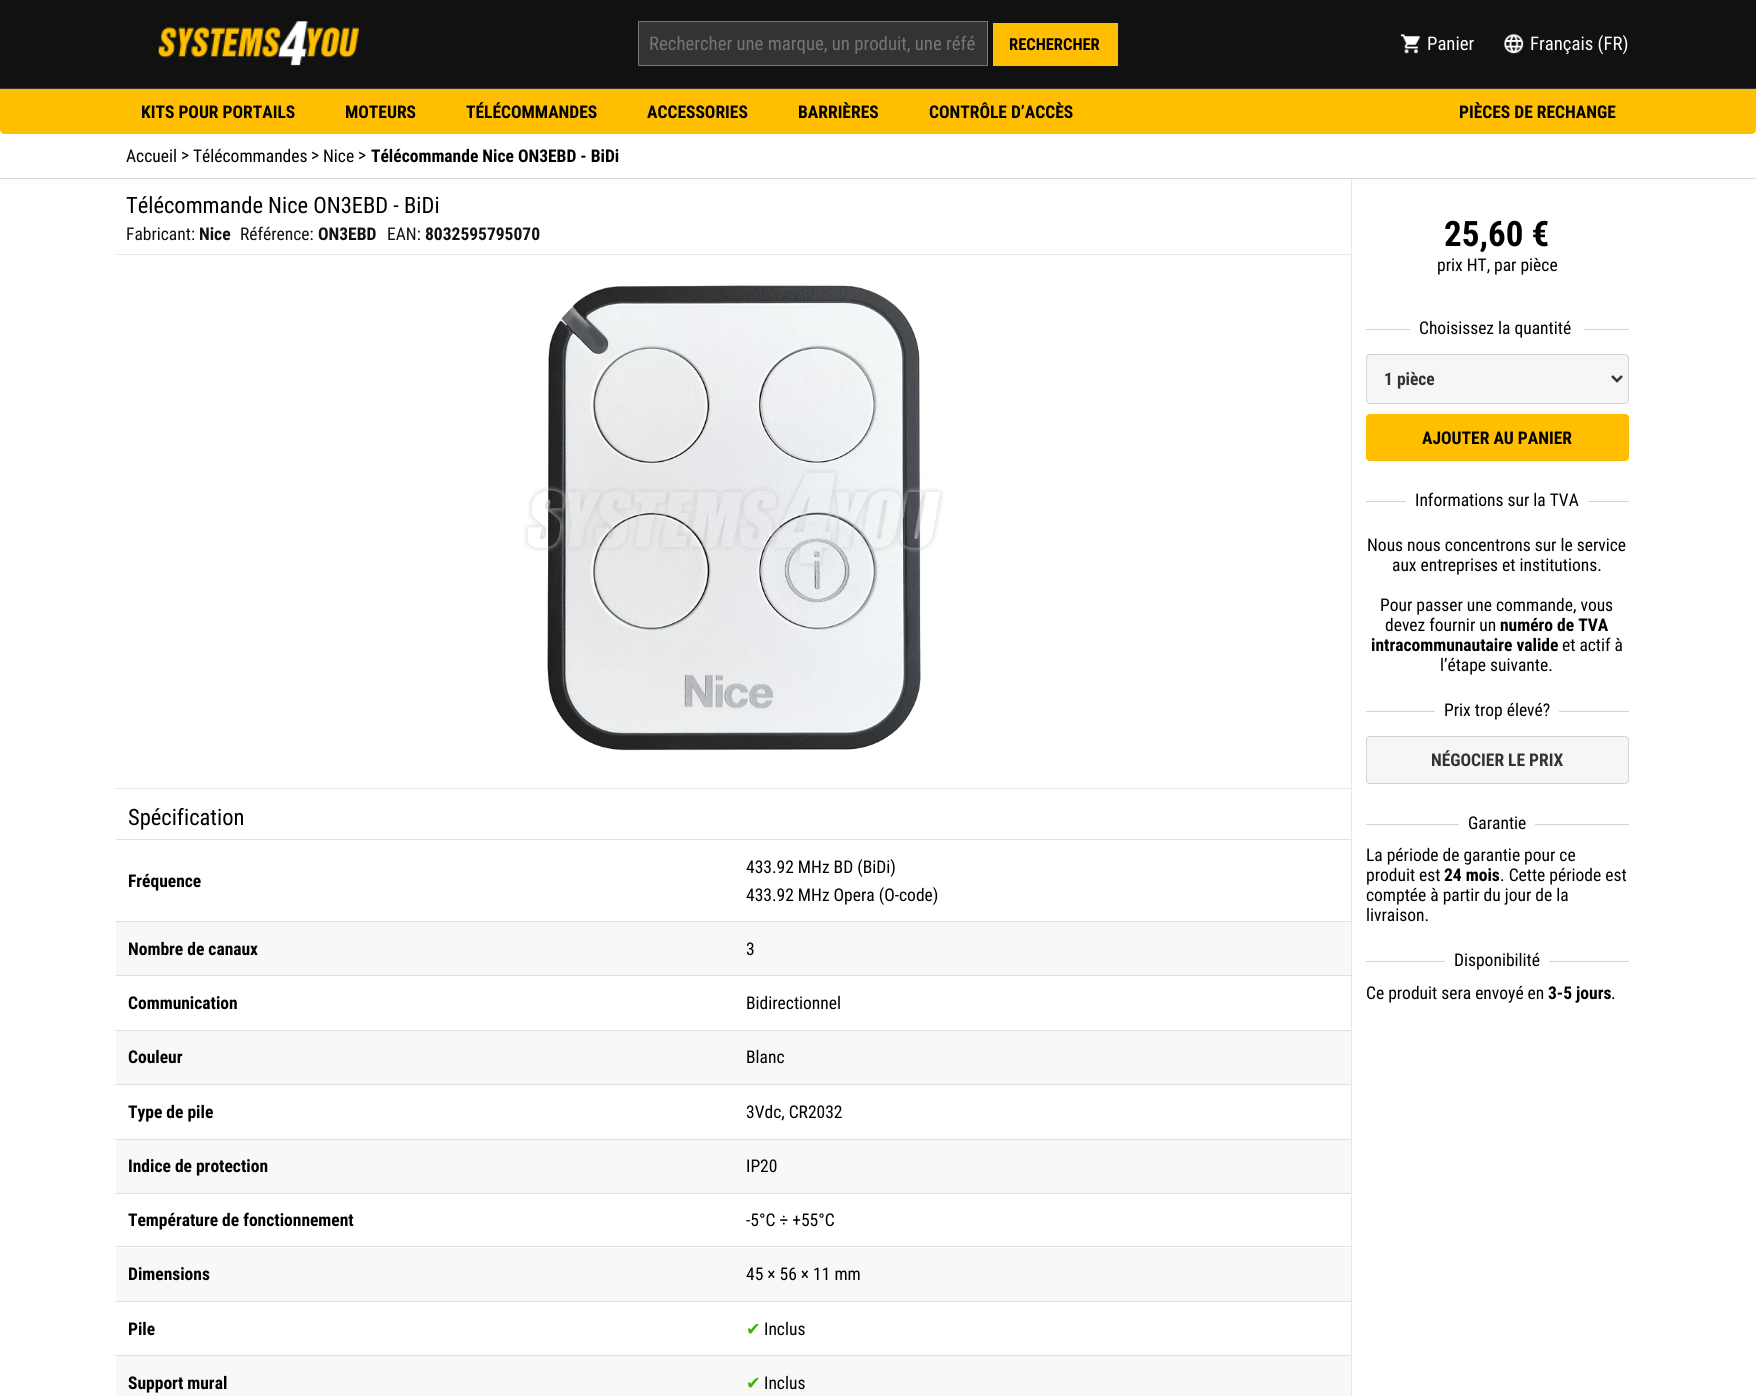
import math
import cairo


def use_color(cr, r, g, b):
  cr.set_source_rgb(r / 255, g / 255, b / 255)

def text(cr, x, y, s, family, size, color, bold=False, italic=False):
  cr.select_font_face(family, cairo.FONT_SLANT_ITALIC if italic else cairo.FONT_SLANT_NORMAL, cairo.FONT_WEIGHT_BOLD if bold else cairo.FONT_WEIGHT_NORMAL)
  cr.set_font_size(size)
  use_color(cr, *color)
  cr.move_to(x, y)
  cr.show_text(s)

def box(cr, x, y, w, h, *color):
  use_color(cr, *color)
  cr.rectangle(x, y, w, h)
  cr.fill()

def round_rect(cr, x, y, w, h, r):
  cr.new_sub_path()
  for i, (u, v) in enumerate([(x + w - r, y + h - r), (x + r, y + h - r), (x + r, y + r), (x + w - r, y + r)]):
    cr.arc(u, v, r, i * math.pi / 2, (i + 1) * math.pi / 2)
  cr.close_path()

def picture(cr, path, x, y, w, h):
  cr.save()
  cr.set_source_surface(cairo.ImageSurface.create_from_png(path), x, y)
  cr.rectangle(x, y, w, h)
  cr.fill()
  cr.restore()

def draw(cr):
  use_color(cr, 255, 255, 255)
  cr.paint()
  box(cr, 0, 0, 1756, 88, 17, 17, 17)
  box(cr, 0, 88, 1756, 1, 51, 51, 51)
  picture(cr, "img_01.png", 158, 21, 201, 45)
  cr.rectangle(638.5, 21.5, 349, 44)
  cr.fill_preserve()
  use_color(cr, 119, 119, 119)
  cr.set_line_width(1)
  cr.stroke()
  box(cr, 993, 23, 125, 43, 255, 191, 0)
  picture(cr, "img_02.png", 1401, 34, 19, 20)
  picture(cr, "img_03.png", 1504, 34, 20, 20)
  cr.new_path()
  cr.move_to(0, 89)
  cr.line_to(1756, 89)
  cr.line_to(1756, 129)
  cr.curve_to(1756, 132, 1754, 134, 1751, 134)
  cr.line_to(5, 134)
  cr.curve_to(2, 134, 0, 132, 0, 129)
  cr.close_path()
  cr.fill()
  box(cr, 0, 178, 1756, 1, 216, 216, 216)
  box(cr, 1351, 179, 1, 1217, 232, 232, 232)
  box(cr, 116, 254, 1235, 1, 232, 232, 232)
  box(cr, 116, 788, 1235, 1, 232, 232, 232)
  picture(cr, "img_04.png", 524, 285, 420, 466)
  box(cr, 116, 839, 1235, 1, 224, 224, 224)
  box(cr, 115, 921, 1236, 1, 224, 224, 224)
  box(cr, 116, 922, 1235, 53, 248, 248, 248)
  box(cr, 115, 975, 1236, 1, 224, 224, 224)
  box(cr, 115, 1030, 1236, 1, 224, 224, 224)
  box(cr, 116, 1031, 1235, 53, 248, 248, 248)
  box(cr, 115, 1084, 1236, 1, 224, 224, 224)
  box(cr, 115, 1139, 1236, 1, 224, 224, 224)
  box(cr, 116, 1140, 1235, 53, 248, 248, 248)
  box(cr, 115, 1193, 1236, 1, 224, 224, 224)
  box(cr, 115, 1246, 1236, 1, 224, 224, 224)
  box(cr, 116, 1248, 1235, 53, 248, 248, 248)
  box(cr, 115, 1301, 1236, 1, 224, 224, 224)
  box(cr, 115, 1355, 1236, 1, 224, 224, 224)
  box(cr, 116, 1356, 1235, 40, 248, 248, 248)
  box(cr, 1366, 329, 44, 1, 212, 212, 212)
  box(cr, 1584, 329, 45, 1, 212, 212, 212)
  use_color(cr, 246, 246, 246)
  round_rect(cr, 1366.5, 354.5, 262, 49, 3.5)
  cr.fill_preserve()
  use_color(cr, 210, 210, 210)
  cr.stroke()
  cr.new_path()
  cr.move_to(1612, 376)
  cr.line_to(1617, 381)
  cr.line_to(1622, 376)
  use_color(cr, 51, 51, 51)
  cr.set_line_width(2.5)
  cr.stroke()
  use_color(cr, 255, 191, 0)
  round_rect(cr, 1366.5, 414.5, 262, 46, 3.5)
  cr.fill_preserve()
  cr.set_line_width(1)
  cr.stroke()
  box(cr, 1366, 501, 40, 1, 212, 212, 212)
  box(cr, 1588, 501, 41, 1, 212, 212, 212)
  box(cr, 1366, 711, 69, 1, 212, 212, 212)
  box(cr, 1559, 711, 70, 1, 212, 212, 212)
  use_color(cr, 246, 246, 246)
  round_rect(cr, 1366.5, 736.5, 262, 47, 3.5)
  cr.fill_preserve()
  use_color(cr, 210, 210, 210)
  cr.stroke()
  box(cr, 1366, 824, 93, 1, 212, 212, 212)
  box(cr, 1535, 824, 94, 1, 212, 212, 212)
  box(cr, 1366, 961, 79, 1, 212, 212, 212)
  box(cr, 1549, 961, 80, 1, 212, 212, 212)
  text(cr, 649, 50, "Rechercher une marque, un produit, une réfé", "Roboto Condensed", 18.75, (117, 117, 117))
  text(cr, 1009, 50, "RECHERCHER", "Roboto Condensed", 16.5, (0, 0, 0), bold=True)
  text(cr, 1427, 50, "Panier", "Roboto Condensed", 18.75, (255, 255, 255))
  text(cr, 1530, 50, "Français (FR)", "Roboto Condensed", 18.75, (255, 255, 255))
  text(cr, 141, 118, "KITS POUR PORTAILS", "Roboto Condensed", 17.5, (0, 0, 0), bold=True)
  text(cr, 345, 118, "MOTEURS", "Roboto Condensed", 17.5, (0, 0, 0), bold=True)
  text(cr, 466, 118, "TÉLÉCOMMANDES", "Roboto Condensed", 17.5, (0, 0, 0), bold=True)
  text(cr, 647, 118, "ACCESSORIES", "Roboto Condensed", 17.5, (0, 0, 0), bold=True)
  text(cr, 798, 118, "BARRIÈRES", "Roboto Condensed", 17.5, (0, 0, 0), bold=True)
  text(cr, 929, 118, "CONTRÔLE D’ACCÈS", "Roboto Condensed", 17.5, (0, 0, 0), bold=True)
  text(cr, 1459, 118, "PIÈCES DE RECHANGE", "Roboto Condensed", 17.5, (0, 0, 0), bold=True)
  text(cr, 126, 162, "Accueil", "Roboto Condensed", 17.5, (0, 0, 0))
  text(cr, 181, 161, ">", "Roboto Condensed", 17.5, (0, 0, 0))
  text(cr, 193, 162, "Télécommandes", "Roboto Condensed", 17.5, (0, 0, 0))
  text(cr, 311, 161, ">", "Roboto Condensed", 17.5, (0, 0, 0))
  text(cr, 323, 162, "Nice", "Roboto Condensed", 17.5, (0, 0, 0))
  text(cr, 358, 161, ">", "Roboto Condensed", 17.5, (0, 0, 0))
  text(cr, 371, 162, "Télécommande Nice ON3EBD - BiDi", "Roboto Condensed", 17.5, (0, 0, 0), bold=True)
  text(cr, 126, 213, "Télécommande Nice ON3EBD - BiDi", "Roboto Condensed", 22.5, (0, 0, 0))
  text(cr, 126, 240, "Fabricant:", "Roboto Condensed", 17.5, (17, 17, 17))
  text(cr, 199, 240, "Nice", "Roboto Condensed", 17.5, (17, 17, 17), bold=True)
  text(cr, 240, 240, "Référence:", "Roboto Condensed", 17.5, (17, 17, 17))
  text(cr, 318, 240, "ON3EBD", "Roboto Condensed", 17.5, (17, 17, 17), bold=True)
  text(cr, 387, 240, "EAN:", "Roboto Condensed", 17.5, (17, 17, 17))
  text(cr, 425, 240, "8032595795070", "Roboto Condensed", 17.5, (17, 17, 17), bold=True)
  text(cr, 128, 825, "Spécification", "Roboto Condensed", 22.5, (0, 0, 0))
  text(cr, 128, 887, "Fréquence", "Roboto Condensed", 17.5, (0, 0, 0), bold=True)
  text(cr, 746, 873, "433.92 MHz BD (BiDi)", "Roboto Condensed", 17.5, (0, 0, 0))
  text(cr, 746, 901, "433.92 MHz Opera (O-code)", "Roboto Condensed", 17.5, (0, 0, 0))
  text(cr, 128, 955, "Nombre de canaux", "Roboto Condensed", 17.5, (0, 0, 0), bold=True)
  text(cr, 746, 955, "3", "Roboto Condensed", 17.5, (0, 0, 0))
  text(cr, 128, 1009, "Communication", "Roboto Condensed", 17.5, (0, 0, 0), bold=True)
  text(cr, 746, 1009, "Bidirectionnel", "Roboto Condensed", 17.5, (0, 0, 0))
  text(cr, 128, 1063, "Couleur", "Roboto Condensed", 17.5, (0, 0, 0), bold=True)
  text(cr, 746, 1063, "Blanc", "Roboto Condensed", 17.5, (0, 0, 0))
  text(cr, 128, 1118, "Type de pile", "Roboto Condensed", 17.5, (0, 0, 0), bold=True)
  text(cr, 746, 1118, "3Vdc, CR2032", "Roboto Condensed", 17.5, (0, 0, 0))
  text(cr, 128, 1172, "Indice de protection", "Roboto Condensed", 17.5, (0, 0, 0), bold=True)
  text(cr, 746, 1172, "IP20", "Roboto Condensed", 17.5, (0, 0, 0))
  text(cr, 128, 1226, "Température de fonctionnement", "Roboto Condensed", 17.5, (0, 0, 0), bold=True)
  text(cr, 746, 1226, "-5°C ÷ +55°C", "Roboto Condensed", 17.5, (0, 0, 0))
  text(cr, 128, 1280, "Dimensions", "Roboto Condensed", 17.5, (0, 0, 0), bold=True)
  text(cr, 746, 1280, "45 × 56 × 11 mm", "Roboto Condensed", 17.5, (0, 0, 0))
  text(cr, 128, 1335, "Pile", "Roboto Condensed", 17.5, (0, 0, 0), bold=True)
  text(cr, 746, 1335, "✔", "DejaVu Sans", 17.5, (58, 181, 1))
  text(cr, 764, 1335, "Inclus", "Roboto Condensed", 17.5, (0, 0, 0))
  text(cr, 128, 1389, "Support mural", "Roboto Condensed", 17.5, (0, 0, 0), bold=True)
  text(cr, 746, 1389, "✔", "DejaVu Sans", 17.5, (58, 181, 1))
  text(cr, 764, 1389, "Inclus", "Roboto Condensed", 17.5, (0, 0, 0))
  text(cr, 1444, 246, "25,60 €", "Roboto Condensed", 35, (0, 0, 0), bold=True)
  text(cr, 1437, 271, "prix HT, par pièce", "Roboto Condensed", 17.5, (0, 0, 0))
  text(cr, 1419, 334, "Choisissez la quantité", "Roboto Condensed", 17.5, (0, 0, 0))
  text(cr, 1384, 385, "1 pièce", "Roboto Condensed", 17.5, (51, 51, 51), bold=True)
  text(cr, 1422, 444, "AJOUTER AU PANIER", "Roboto Condensed", 17.5, (0, 0, 0), bold=True)
  text(cr, 1415, 506, "Informations sur la TVA", "Roboto Condensed", 17.5, (0, 0, 0))
  text(cr, 1367, 551, "Nous nous concentrons sur le service", "Roboto Condensed", 17.5, (0, 0, 0))
  text(cr, 1392, 571, "aux entreprises et institutions.", "Roboto Condensed", 17.5, (0, 0, 0))
  text(cr, 1380, 611, "Pour passer une commande, vous", "Roboto Condensed", 17.5, (0, 0, 0))
  text(cr, 1385, 631, "devez fournir un", "Roboto Condensed", 17.5, (0, 0, 0))
  text(cr, 1500, 631, "numéro de TVA", "Roboto Condensed", 17.5, (0, 0, 0), bold=True)
  text(cr, 1371, 651, "intracommunautaire valide", "Roboto Condensed", 17.5, (0, 0, 0), bold=True)
  text(cr, 1562, 651, "et actif à", "Roboto Condensed", 17.5, (0, 0, 0))
  text(cr, 1440, 671, "l’étape suivante.", "Roboto Condensed", 17.5, (0, 0, 0))
  text(cr, 1444, 716, "Prix trop élevé?", "Roboto Condensed", 17.5, (0, 0, 0))
  text(cr, 1431, 766, "NÉGOCIER LE PRIX", "Roboto Condensed", 17.5, (51, 51, 51), bold=True)
  text(cr, 1468, 829, "Garantie", "Roboto Condensed", 17.5, (0, 0, 0))
  text(cr, 1366, 861, "La période de garantie pour ce", "Roboto Condensed", 17.5, (0, 0, 0))
  text(cr, 1366, 881, "produit est", "Roboto Condensed", 17.5, (0, 0, 0))
  text(cr, 1444, 881, "24 mois", "Roboto Condensed", 17.5, (0, 0, 0), bold=True)
  text(cr, 1500, 881, ". Cette période est", "Roboto Condensed", 17.5, (0, 0, 0))
  text(cr, 1366, 901, "comptée à partir du jour de la", "Roboto Condensed", 17.5, (0, 0, 0))
  text(cr, 1366, 921, "livraison.", "Roboto Condensed", 17.5, (0, 0, 0))
  text(cr, 1454, 966, "Disponibilité", "Roboto Condensed", 17.5, (0, 0, 0))
  text(cr, 1366, 999, "Ce produit sera envoyé en", "Roboto Condensed", 17.5, (0, 0, 0))
  text(cr, 1548, 999, "3-5 jours", "Roboto Condensed", 17.5, (0, 0, 0), bold=True)
  text(cr, 1611, 999, ".", "Roboto Condensed", 17.5, (0, 0, 0))


surface = cairo.ImageSurface(cairo.FORMAT_RGB24, 1756, 1396)
cr = cairo.Context(surface)
options = cairo.FontOptions()
options.set_hint_metrics(cairo.HINT_METRICS_OFF)
options.set_hint_style(cairo.HINT_STYLE_NONE)
cr.set_font_options(options)
cr.set_miter_limit(4)
draw(cr)
surface.write_to_png("out.png")
